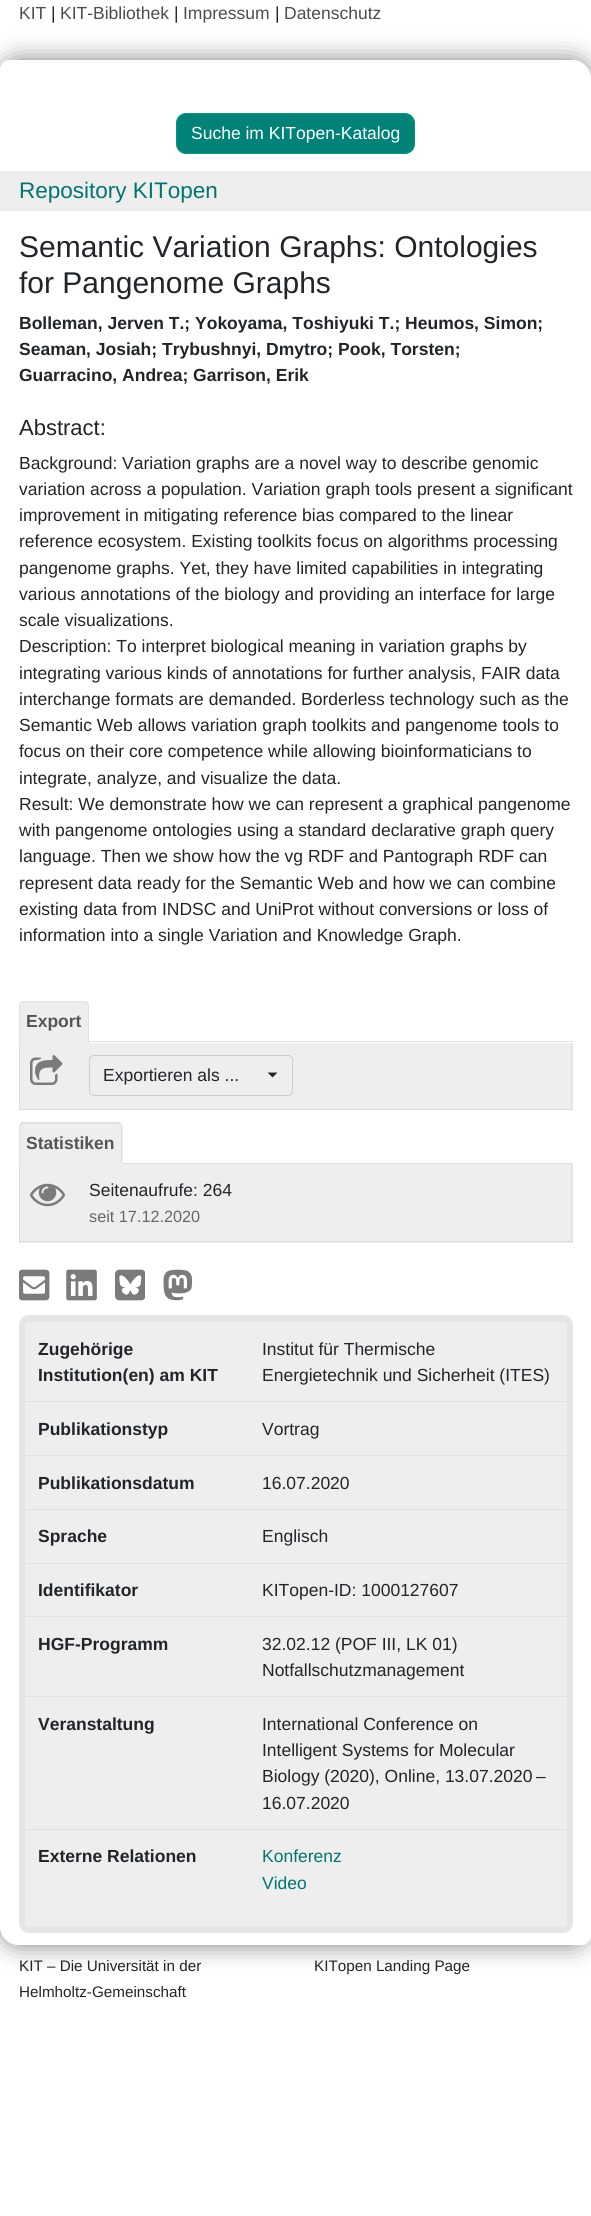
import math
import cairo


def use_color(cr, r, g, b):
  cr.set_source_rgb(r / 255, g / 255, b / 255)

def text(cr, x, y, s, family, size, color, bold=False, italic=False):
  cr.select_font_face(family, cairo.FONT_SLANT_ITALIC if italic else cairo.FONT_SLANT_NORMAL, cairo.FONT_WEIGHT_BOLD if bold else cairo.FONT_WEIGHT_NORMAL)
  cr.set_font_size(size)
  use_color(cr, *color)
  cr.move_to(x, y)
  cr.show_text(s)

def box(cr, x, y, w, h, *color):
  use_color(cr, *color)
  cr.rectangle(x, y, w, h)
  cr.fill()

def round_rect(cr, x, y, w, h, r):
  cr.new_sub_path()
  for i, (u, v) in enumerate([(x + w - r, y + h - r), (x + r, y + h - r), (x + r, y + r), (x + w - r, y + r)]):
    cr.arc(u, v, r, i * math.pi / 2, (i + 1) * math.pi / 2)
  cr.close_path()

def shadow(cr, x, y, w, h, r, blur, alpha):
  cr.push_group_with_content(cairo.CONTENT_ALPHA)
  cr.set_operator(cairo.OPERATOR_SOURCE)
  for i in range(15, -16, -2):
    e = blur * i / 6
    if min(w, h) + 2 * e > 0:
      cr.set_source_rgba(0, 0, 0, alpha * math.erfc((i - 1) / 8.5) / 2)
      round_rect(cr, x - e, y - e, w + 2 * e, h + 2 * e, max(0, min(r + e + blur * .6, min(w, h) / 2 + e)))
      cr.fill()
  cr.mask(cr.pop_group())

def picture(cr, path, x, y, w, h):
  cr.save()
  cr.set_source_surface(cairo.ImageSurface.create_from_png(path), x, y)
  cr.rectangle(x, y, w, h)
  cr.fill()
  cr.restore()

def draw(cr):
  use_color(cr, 255, 255, 255)
  cr.paint()
  cr.save()
  cr.set_fill_rule(cairo.FILL_RULE_EVEN_ODD)
  cr.new_path()
  cr.move_to(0, 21)
  cr.line_to(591, 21)
  cr.line_to(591, 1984)
  cr.line_to(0, 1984)
  cr.close_path()
  cr.move_to(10, 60)
  cr.line_to(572, 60)
  cr.curve_to(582.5, 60, 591, 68.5, 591, 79)
  cr.line_to(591, 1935)
  cr.curve_to(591, 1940.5, 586.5, 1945, 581, 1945)
  cr.line_to(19, 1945)
  cr.curve_to(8.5, 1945, 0, 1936.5, 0, 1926)
  cr.line_to(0, 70)
  cr.curve_to(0, 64.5, 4.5, 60, 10, 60)
  cr.close_path()
  cr.clip()
  use_color(cr, 128, 128, 128)
  shadow(cr, 0, 60, 591, 1885, 19, 12.5, 1)
  cr.restore()
  use_color(cr, 0, 130, 120)
  round_rect(cr, 176.5, 113.5, 238, 40, 9.5)
  cr.fill_preserve()
  use_color(cr, 0, 150, 130)
  cr.set_line_width(1)
  cr.stroke()
  box(cr, 0, 171, 591, 40, 238, 238, 238)
  box(cr, 89, 1041, 484, 1, 222, 226, 230)
  use_color(cr, 238, 238, 238)
  cr.new_path()
  cr.move_to(24, 1001)
  cr.line_to(84, 1001)
  cr.curve_to(87, 1001, 89, 1003, 89, 1006)
  cr.line_to(89, 1043)
  cr.line_to(19, 1043)
  cr.line_to(19, 1006)
  cr.curve_to(19, 1003, 21, 1001, 24, 1001)
  cr.close_path()
  cr.fill()
  use_color(cr, 222, 226, 230)
  cr.new_path()
  cr.move_to(23, 1002)
  cr.line_to(21, 1003)
  cr.line_to(20, 1003)
  cr.line_to(22, 1001)
  cr.line_to(86, 1001)
  cr.line_to(88, 1002)
  cr.line_to(87, 1003)
  cr.line_to(84, 1002)
  cr.close_path()
  cr.fill()
  cr.new_path()
  cr.move_to(89, 1042)
  cr.line_to(88, 1042)
  cr.line_to(87, 1041)
  cr.line_to(88, 1041)
  cr.line_to(88, 1006)
  cr.curve_to(88, 1005, 87.5, 1004, 87, 1003)
  cr.line_to(87.5, 1002.5)
  cr.line_to(89, 1004.5)
  cr.close_path()
  cr.fill()
  use_color(cr, 238, 238, 238)
  cr.new_path()
  cr.move_to(88, 1042)
  cr.line_to(19, 1042)
  cr.line_to(20, 1041)
  cr.line_to(87, 1041)
  cr.close_path()
  cr.fill()
  use_color(cr, 222, 226, 230)
  cr.new_path()
  cr.move_to(19, 1042)
  cr.line_to(19, 1006)
  cr.curve_to(19, 1004.5, 19.5, 1003.5, 20, 1002.5)
  cr.line_to(21, 1003)
  cr.curve_to(20, 1004, 20, 1005, 20, 1006)
  cr.line_to(20, 1041)
  cr.close_path()
  cr.fill()
  box(cr, 20, 1043, 553, 66, 238, 238, 238)
  box(cr, 571, 1043, 1, 67, 221, 221, 221)
  box(cr, 19, 1109, 554, 1, 221, 221, 221)
  box(cr, 19, 1043, 1, 67, 221, 221, 221)
  picture(cr, "img_01.png", 30, 1055, 33, 30)
  round_rect(cr, 89.5, 1055.5, 203, 40, 4.5)
  use_color(cr, 204, 204, 204)
  cr.stroke()
  use_color(cr, 33, 37, 41)
  cr.new_path()
  cr.move_to(267.5, 1072.5)
  cr.line_to(277.5, 1072.5)
  cr.line_to(272.5, 1077.5)
  cr.close_path()
  cr.fill()
  box(cr, 123, 1163, 450, 1, 222, 226, 230)
  use_color(cr, 238, 238, 238)
  cr.new_path()
  cr.move_to(24, 1123)
  cr.line_to(118, 1123)
  cr.curve_to(121, 1123, 123, 1125, 123, 1128)
  cr.line_to(123, 1164)
  cr.line_to(19, 1164)
  cr.line_to(19, 1128)
  cr.curve_to(19, 1125, 21, 1123, 24, 1123)
  cr.close_path()
  cr.fill()
  use_color(cr, 222, 226, 230)
  cr.new_path()
  cr.move_to(23, 1124)
  cr.line_to(21, 1125)
  cr.line_to(20, 1124)
  cr.line_to(21, 1122)
  cr.line_to(120, 1122)
  cr.line_to(121, 1124)
  cr.line_to(120, 1125)
  cr.line_to(118, 1124)
  cr.close_path()
  cr.fill()
  cr.new_path()
  cr.move_to(121.5, 1123.5)
  cr.curve_to(122, 1124.5, 122, 1125.5, 122, 1127)
  cr.line_to(122, 1163)
  cr.line_to(121, 1162)
  cr.line_to(121, 1127)
  cr.curve_to(121, 1126, 121, 1125, 120, 1125)
  cr.close_path()
  cr.fill()
  use_color(cr, 238, 238, 238)
  cr.new_path()
  cr.move_to(19, 1164)
  cr.line_to(20, 1162)
  cr.line_to(121, 1162)
  cr.line_to(122, 1163)
  cr.line_to(122, 1164)
  cr.close_path()
  cr.fill()
  use_color(cr, 222, 226, 230)
  cr.new_path()
  cr.move_to(19, 1163.5)
  cr.line_to(19, 1127)
  cr.curve_to(19, 1125.5, 19.5, 1124.5, 20, 1123.5)
  cr.line_to(21, 1124.5)
  cr.curve_to(20.5, 1125, 20, 1126, 20, 1127)
  cr.line_to(20, 1162)
  cr.line_to(20.5, 1162)
  cr.close_path()
  cr.fill()
  box(cr, 20, 1164, 553, 79, 238, 238, 238)
  box(cr, 571, 1164, 1, 79, 221, 221, 221)
  box(cr, 19, 1241, 554, 1, 221, 221, 221)
  box(cr, 19, 1164, 1, 79, 221, 221, 221)
  picture(cr, "img_02.png", 30, 1183, 35, 24)
  picture(cr, "img_03.png", 19, 1269, 31, 32)
  picture(cr, "img_04.png", 66, 1269, 31, 32)
  picture(cr, "img_05.png", 115, 1269, 30, 32)
  picture(cr, "img_06.png", 163, 1269, 30, 32)
  use_color(cr, 238, 238, 238)
  round_rect(cr, 22, 1318, 548, 612, 7)
  cr.fill_preserve()
  use_color(cr, 229, 229, 229)
  cr.set_line_width(6)
  cr.stroke()
  box(cr, 25, 1321, 543, 1, 222, 226, 230)
  box(cr, 25, 1401, 543, 1, 222, 226, 230)
  box(cr, 25, 1455, 543, 1, 222, 226, 230)
  box(cr, 25, 1509, 543, 1, 222, 226, 230)
  box(cr, 25, 1563, 543, 1, 222, 226, 230)
  box(cr, 25, 1616, 543, 1, 222, 226, 230)
  box(cr, 25, 1696, 543, 1, 222, 226, 230)
  box(cr, 25, 1829, 543, 1, 222, 226, 230)
  text(cr, 19, 19, "KIT", "Liberation Sans", 17.5, (77, 77, 77))
  text(cr, 51, 19, "|", "Liberation Sans", 17.5, (33, 37, 41))
  text(cr, 60, 19, "KIT-Bibliothek", "Liberation Sans", 17.5, (77, 77, 77))
  text(cr, 174, 19, "|", "Liberation Sans", 17.5, (33, 37, 41))
  text(cr, 183, 19, "Impressum", "Liberation Sans", 17.5, (77, 77, 77))
  text(cr, 275, 19, "|", "Liberation Sans", 17.5, (33, 37, 41))
  text(cr, 284, 19, "Datenschutz", "Liberation Sans", 17.5, (77, 77, 77))
  text(cr, 191, 139, "Suche im KITopen-Katalog", "Liberation Sans", 17.5, (255, 255, 255))
  text(cr, 19, 198, "Repository KITopen", "Liberation Sans", 22.5, (0, 117, 112))
  text(cr, 19, 257, "Semantic Variation Graphs: Ontologies", "Liberation Sans", 30, (33, 37, 41))
  text(cr, 19, 293, "for Pangenome Graphs", "Liberation Sans", 30, (33, 37, 41))
  text(cr, 19, 329, "Bolleman, Jerven T.; Yokoyama, Toshiyuki T.; Heumos, Simon;", "Liberation Sans", 17.5, (33, 37, 41), bold=True)
  text(cr, 19, 355, "Seaman, Josiah; Trybushnyi, Dmytro; Pook, Torsten;", "Liberation Sans", 17.5, (33, 37, 41), bold=True)
  text(cr, 19, 381, "Guarracino, Andrea; Garrison, Erik", "Liberation Sans", 17.5, (33, 37, 41), bold=True)
  text(cr, 19, 435, "Abstract:", "Liberation Sans", 22, (33, 37, 41))
  text(cr, 19, 469, "Background: Variation graphs are a novel way to describe genomic", "Liberation Sans", 17.5, (33, 37, 41))
  text(cr, 19, 495, "variation across a population. Variation graph tools present a significant", "Liberation Sans", 17.5, (33, 37, 41))
  text(cr, 19, 521, "improvement in mitigating reference bias compared to the linear", "Liberation Sans", 17.5, (33, 37, 41))
  text(cr, 19, 547, "reference ecosystem. Existing toolkits focus on algorithms processing", "Liberation Sans", 17.5, (33, 37, 41))
  text(cr, 19, 574, "pangenome graphs. Yet, they have limited capabilities in integrating", "Liberation Sans", 17.5, (33, 37, 41))
  text(cr, 19, 600, "various annotations of the biology and providing an interface for large", "Liberation Sans", 17.5, (33, 37, 41))
  text(cr, 19, 626, "scale visualizations.", "Liberation Sans", 17.5, (33, 37, 41))
  text(cr, 19, 652, "Description: To interpret biological meaning in variation graphs by", "Liberation Sans", 17.5, (33, 37, 41))
  text(cr, 19, 679, "integrating various kinds of annotations for further analysis, FAIR data", "Liberation Sans", 17.5, (33, 37, 41))
  text(cr, 19, 705, "interchange formats are demanded. Borderless technology such as the", "Liberation Sans", 17.5, (33, 37, 41))
  text(cr, 19, 731, "Semantic Web allows variation graph toolkits and pangenome tools to", "Liberation Sans", 17.5, (33, 37, 41))
  text(cr, 19, 757, "focus on their core competence while allowing bioinformaticians to", "Liberation Sans", 17.5, (33, 37, 41))
  text(cr, 19, 784, "integrate, analyze, and visualize the data.", "Liberation Sans", 17.5, (33, 37, 41))
  text(cr, 19, 810, "Result: We demonstrate how we can represent a graphical pangenome", "Liberation Sans", 17.5, (33, 37, 41))
  text(cr, 19, 836, "with pangenome ontologies using a standard declarative graph query", "Liberation Sans", 17.5, (33, 37, 41))
  text(cr, 19, 862, "language. Then we show how the vg RDF and Pantograph RDF can", "Liberation Sans", 17.5, (33, 37, 41))
  text(cr, 19, 889, "represent data ready for the Semantic Web and how we can combine", "Liberation Sans", 17.5, (33, 37, 41))
  text(cr, 19, 915, "existing data from INDSC and UniProt without conversions or loss of", "Liberation Sans", 17.5, (33, 37, 41))
  text(cr, 19, 941, "information into a single Variation and Knowledge Graph.", "Liberation Sans", 17.5, (33, 37, 41))
  text(cr, 26, 1027, "Export", "Liberation Sans", 17.5, (85, 85, 85), bold=True)
  text(cr, 103, 1081, "Exportieren als ...", "Liberation Sans", 17.5, (33, 37, 41))
  text(cr, 26, 1149, "Statistiken", "Liberation Sans", 17.5, (85, 85, 85), bold=True)
  text(cr, 89, 1196, "Seitenaufrufe: 264", "Liberation Sans", 17.5, (33, 37, 41))
  text(cr, 89, 1222, "seit 17.12.2020", "Liberation Sans", 16.25, (102, 102, 102))
  text(cr, 38, 1355, "Zugehörige", "Liberation Sans", 17.5, (33, 37, 41), bold=True)
  text(cr, 38, 1381, "Institution(en) am KIT", "Liberation Sans", 17.5, (33, 37, 41), bold=True)
  text(cr, 262, 1355, "Institut für Thermische", "Liberation Sans", 17.5, (33, 37, 41))
  text(cr, 262, 1381, "Energietechnik und Sicherheit (ITES)", "Liberation Sans", 17.5, (33, 37, 41))
  text(cr, 38, 1435, "Publikationstyp", "Liberation Sans", 17.5, (33, 37, 41), bold=True)
  text(cr, 262, 1435, "Vortrag", "Liberation Sans", 17.5, (33, 37, 41))
  text(cr, 38, 1489, "Publikationsdatum", "Liberation Sans", 17.5, (33, 37, 41), bold=True)
  text(cr, 262, 1489, "16.07.2020", "Liberation Sans", 17.5, (33, 37, 41))
  text(cr, 38, 1542, "Sprache", "Liberation Sans", 17.5, (33, 37, 41), bold=True)
  text(cr, 262, 1542, "Englisch", "Liberation Sans", 17.5, (33, 37, 41))
  text(cr, 38, 1596, "Identifikator", "Liberation Sans", 17.5, (33, 37, 41), bold=True)
  text(cr, 262, 1596, "KITopen-ID: 1000127607", "Liberation Sans", 17.5, (33, 37, 41))
  text(cr, 38, 1650, "HGF-Programm", "Liberation Sans", 17.5, (33, 37, 41), bold=True)
  text(cr, 262, 1650, "32.02.12 (POF III, LK 01)", "Liberation Sans", 17.5, (33, 37, 41))
  text(cr, 262, 1676, "Notfallschutzmanagement", "Liberation Sans", 17.5, (33, 37, 41))
  text(cr, 38, 1730, "Veranstaltung", "Liberation Sans", 17.5, (33, 37, 41), bold=True)
  text(cr, 262, 1730, "International Conference on", "Liberation Sans", 17.5, (33, 37, 41))
  text(cr, 262, 1756, "Intelligent Systems for Molecular", "Liberation Sans", 17.5, (33, 37, 41))
  text(cr, 262, 1782, "Biology (2020), Online, 13.07.2020 –", "Liberation Sans", 17.5, (33, 37, 41))
  text(cr, 262, 1809, "16.07.2020", "Liberation Sans", 17.5, (33, 37, 41))
  text(cr, 38, 1862, "Externe Relationen", "Liberation Sans", 17.5, (33, 37, 41), bold=True)
  text(cr, 262, 1862, "Konferenz", "Liberation Sans", 17.5, (0, 117, 112))
  text(cr, 262, 1889, "Video", "Liberation Sans", 17.5, (0, 117, 112))
  text(cr, 19, 1971, "KIT – Die Universität in der", "Liberation Sans", 15.25, (33, 37, 41))
  text(cr, 19, 1997, "Helmholtz-Gemeinschaft", "Liberation Sans", 15.25, (33, 37, 41))
  text(cr, 314, 1971, "KITopen Landing Page", "Liberation Sans", 15.25, (33, 37, 41))


surface = cairo.ImageSurface(cairo.FORMAT_RGB24, 591, 2216)
cr = cairo.Context(surface)
options = cairo.FontOptions()
options.set_hint_metrics(cairo.HINT_METRICS_OFF)
options.set_hint_style(cairo.HINT_STYLE_NONE)
cr.set_font_options(options)
cr.set_miter_limit(4)
draw(cr)
surface.write_to_png("out.png")
